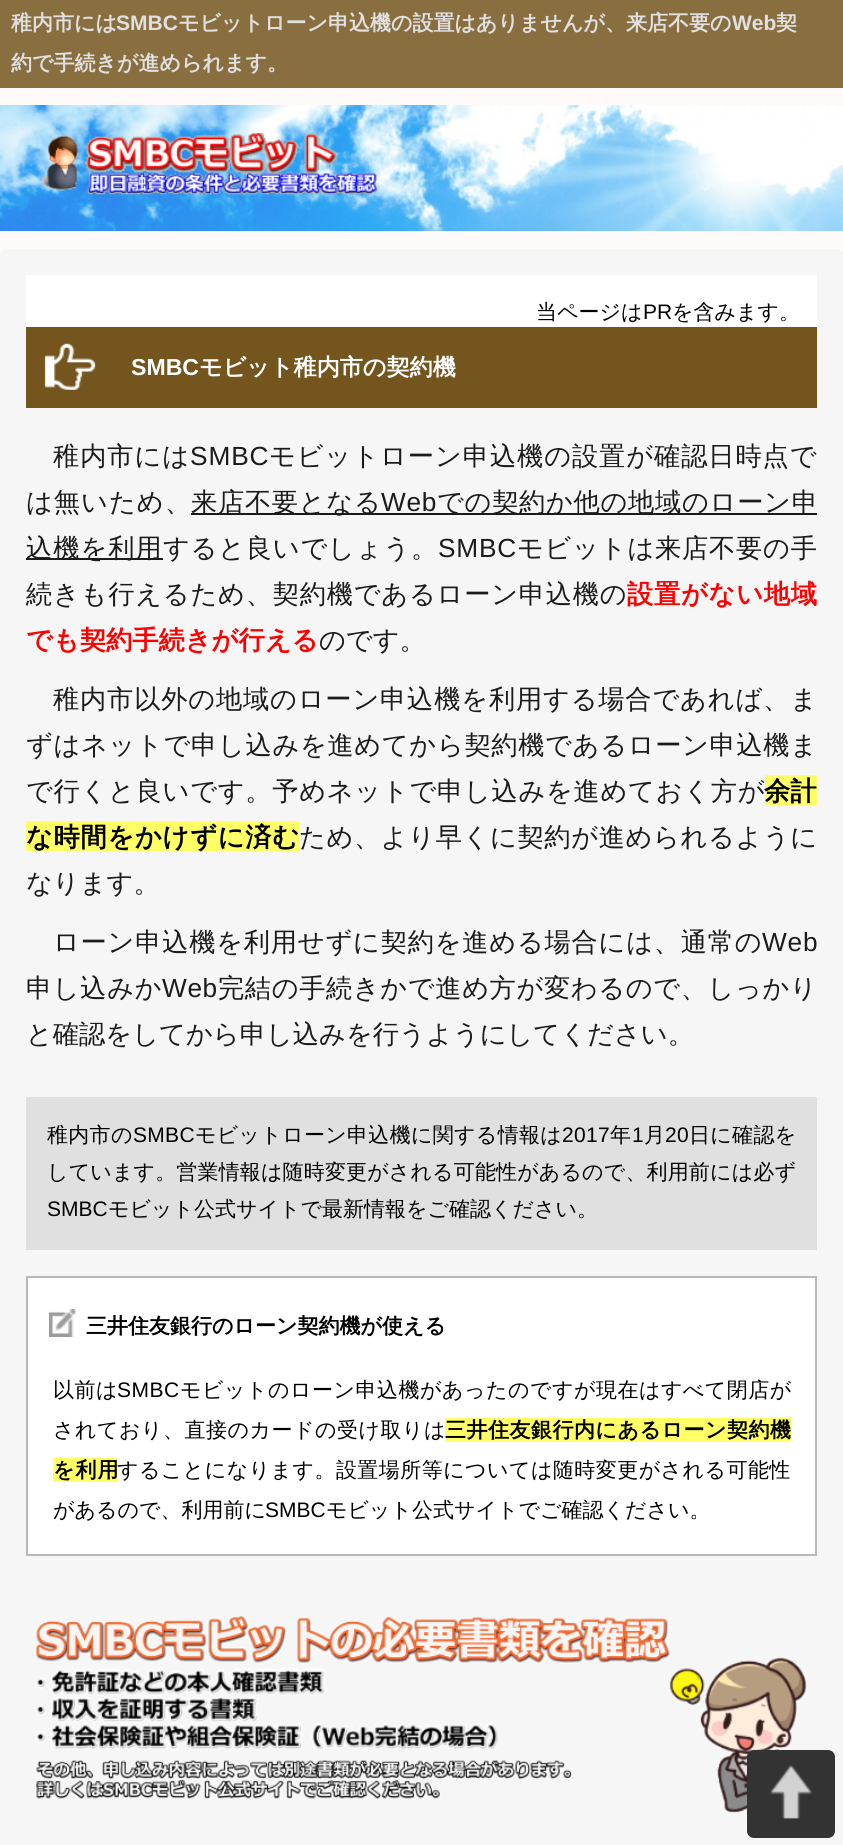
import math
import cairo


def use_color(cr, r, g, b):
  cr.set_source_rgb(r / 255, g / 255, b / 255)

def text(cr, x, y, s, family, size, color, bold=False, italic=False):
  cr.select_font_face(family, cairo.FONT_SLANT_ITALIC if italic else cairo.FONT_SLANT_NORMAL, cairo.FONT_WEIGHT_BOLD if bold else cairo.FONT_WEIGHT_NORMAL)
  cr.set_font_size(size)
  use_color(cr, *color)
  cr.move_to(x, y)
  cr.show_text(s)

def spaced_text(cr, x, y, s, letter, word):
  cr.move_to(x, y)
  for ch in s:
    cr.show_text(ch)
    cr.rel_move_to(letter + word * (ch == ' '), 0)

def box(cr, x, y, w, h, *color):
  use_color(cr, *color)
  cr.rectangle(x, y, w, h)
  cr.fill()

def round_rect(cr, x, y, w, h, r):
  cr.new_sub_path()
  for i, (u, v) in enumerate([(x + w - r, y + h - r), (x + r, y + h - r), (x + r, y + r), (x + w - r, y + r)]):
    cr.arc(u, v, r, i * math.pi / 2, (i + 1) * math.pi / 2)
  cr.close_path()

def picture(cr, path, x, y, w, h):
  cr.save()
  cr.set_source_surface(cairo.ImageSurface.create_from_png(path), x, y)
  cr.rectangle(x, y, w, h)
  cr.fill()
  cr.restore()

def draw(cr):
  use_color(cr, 255, 250, 250)
  cr.paint()
  box(cr, 0, 0, 843, 88, 137, 110, 64)
  picture(cr, "img_01.png", 0, 105, 843, 126)
  picture(cr, "img_02.png", 41, 133, 336, 62)
  use_color(cr, 246, 246, 246)
  round_rect(cr, 0, 249, 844, 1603, 7)
  cr.fill()
  box(cr, 26, 275, 791, 52, 255, 255, 255)
  box(cr, 26, 327, 791, 81, 116, 85, 30)
  picture(cr, "img_03.png", 44, 343, 52, 47)
  box(cr, 191, 513, 626, 2, 27, 27, 27)
  box(cr, 26, 558, 137, 2, 27, 27, 27)
  box(cr, 765, 775, 52, 30, 255, 255, 102)
  box(cr, 26, 821, 273, 30, 255, 255, 102)
  box(cr, 26, 1097, 791, 153, 224, 224, 224)
  use_color(cr, 255, 255, 255)
  cr.rectangle(27, 1277, 789, 278)
  cr.fill_preserve()
  use_color(cr, 185, 185, 185)
  cr.stroke()
  picture(cr, "img_04.png", 49, 1309, 27, 28)
  box(cr, 445, 1418, 346, 24, 255, 255, 102)
  box(cr, 53, 1458, 64, 24, 255, 255, 102)
  picture(cr, "img_05.png", 34, 1615, 773, 198)
  use_color(cr, 51, 51, 51)
  round_rect(cr, 747, 1750, 88, 88, 7)
  cr.fill()
  picture(cr, "img_06.png", 769, 1765, 44, 54)
  text(cr, 11, 30, "稚内市には", "WenQuanYi Zen Hei", 21, (224, 224, 224), bold=True)
  text(cr, 116, 30, "SMBC", "Liberation Sans", 21, (224, 224, 224), bold=True)
  text(cr, 178, 30, "モビットローン申込機の設置はありませんが、来店不要の", "WenQuanYi Zen Hei", 21, (224, 224, 224), bold=True)
  text(cr, 732, 30, "Web", "Liberation Sans", 21, (224, 224, 224), bold=True)
  text(cr, 776, 30, "契", "WenQuanYi Zen Hei", 21, (224, 224, 224), bold=True)
  text(cr, 11, 70, "約で手続きが進められます。", "WenQuanYi Zen Hei", 21, (224, 224, 224), bold=True)
  text(cr, 536, 319, "当ページは", "WenQuanYi Zen Hei Medium", 21, (0, 0, 0))
  text(cr, 643, 319, "PR", "Liberation Sans", 21, (0, 0, 0))
  text(cr, 672, 319, "を含みます。", "WenQuanYi Zen Hei Medium", 21, (0, 0, 0))
  text(cr, 131, 375, "SMBC", "Liberation Sans", 23.1, (255, 255, 255), bold=True)
  text(cr, 199, 375, "モビット稚内市の契約機", "WenQuanYi Zen Hei", 23.1, (255, 255, 255), bold=True)
  cr.select_font_face("WenQuanYi Zen Hei Medium")
  cr.set_font_size(26.25)
  use_color(cr, 27, 27, 27)
  spaced_text(cr, 53, 465, "稚内市には", 0.9, 0)
  cr.select_font_face("Liberation Sans")
  spaced_text(cr, 190, 465, "SMBC", 0.9, 0)
  cr.select_font_face("WenQuanYi Zen Hei Medium")
  spaced_text(cr, 269, 465, "モビットローン申込機の設置が確認日時点で", 0.9, 0)
  spaced_text(cr, 26, 511, "は無いため、", 1, 0)
  spaced_text(cr, 191, 511, "来店不要となる", 0.7, 0)
  cr.select_font_face("Liberation Sans")
  spaced_text(cr, 381, 511, "Web", 0.7, 0)
  cr.select_font_face("WenQuanYi Zen Hei Medium")
  spaced_text(cr, 437, 511, "での契約か他の地域のローン申", 0.7, 0)
  spaced_text(cr, 26, 557, "込機を利用", 1, 0)
  spaced_text(cr, 163, 557, "すると良いでしょう。", 0.75, 0)
  cr.select_font_face("Liberation Sans")
  spaced_text(cr, 438, 557, "SMBC", 0.75, 0)
  cr.select_font_face("WenQuanYi Zen Hei Medium")
  spaced_text(cr, 517, 557, "モビットは来店不要の手", 0.75, 0)
  spaced_text(cr, 26, 603, "続きも行えるため、契約機であるローン申込機の", 0.75, 0)
  cr.select_font_face("WenQuanYi Zen Hei", cairo.FONT_SLANT_NORMAL, cairo.FONT_WEIGHT_BOLD)
  use_color(cr, 255, 0, 0)
  spaced_text(cr, 627, 603, "設置がない地域", 0.75, 0)
  text(cr, 26, 649, "でも契約手続きが行える", "WenQuanYi Zen Hei", 26.25, (255, 0, 0), bold=True)
  text(cr, 319, 649, "のです。", "WenQuanYi Zen Hei Medium", 26.25, (27, 27, 27))
  spaced_text(cr, 53, 708, "稚内市以外の地域のローン申込機を利用する場合であれば、ま", 0.8, 0)
  spaced_text(cr, 26, 754, "ずはネットで申し込みを進めてから契約機であるローン申込機ま", 0.65, 0)
  spaced_text(cr, 26, 800, "で行くと良いです。予めネットで申し込みを進めておく方が", 0.7, 0)
  text(cr, 764, 800, "余計", "WenQuanYi Zen Hei", 26.25, (0, 0, 0), bold=True)
  spaced_text(cr, 26, 846, "な時間をかけずに済む", 0.7, 0)
  cr.select_font_face("WenQuanYi Zen Hei Medium")
  use_color(cr, 27, 27, 27)
  spaced_text(cr, 299, 846, "ため、より早くに契約が進められるように", 0.6, 0)
  text(cr, 26, 892, "なります。", "WenQuanYi Zen Hei Medium", 26.25, (27, 27, 27))
  spaced_text(cr, 53, 951, "ローン申込機を利用せずに契約を進める場合には、通常の", 0.75, 0)
  cr.select_font_face("Liberation Sans")
  spaced_text(cr, 762, 951, "Web", 0.75, 0)
  cr.select_font_face("WenQuanYi Zen Hei Medium")
  spaced_text(cr, 26, 997, "申し込みか", 0.6, 0)
  cr.select_font_face("Liberation Sans")
  spaced_text(cr, 162, 997, "Web", 0.6, 0)
  cr.select_font_face("WenQuanYi Zen Hei Medium")
  spaced_text(cr, 218, 997, "完結の手続きかで進め方が変わるので、しっかり", 0.6, 0)
  text(cr, 26, 1043, "と確認をしてから申し込みを行うようにしてください。", "WenQuanYi Zen Hei Medium", 26.25, (27, 27, 27))
  cr.set_font_size(21)
  use_color(cr, 0, 0, 0)
  spaced_text(cr, 47, 1142, "稚内市の", 0.3, 0)
  cr.select_font_face("Liberation Sans")
  spaced_text(cr, 133, 1142, "SMBC", 0.3, 0)
  cr.select_font_face("WenQuanYi Zen Hei Medium")
  spaced_text(cr, 195, 1142, "モビットローン申込機に関する情報は", 0.3, 0)
  cr.select_font_face("Liberation Sans")
  spaced_text(cr, 562, 1142, "2017", 0.3, 0)
  cr.select_font_face("WenQuanYi Zen Hei Medium")
  spaced_text(cr, 610, 1142, "年", 0.3, 0)
  cr.select_font_face("Liberation Sans")
  spaced_text(cr, 632, 1142, "1", 0.3, 0)
  cr.select_font_face("WenQuanYi Zen Hei Medium")
  spaced_text(cr, 644, 1142, "月", 0.3, 0)
  cr.select_font_face("Liberation Sans")
  spaced_text(cr, 665, 1142, "20", 0.3, 0)
  cr.select_font_face("WenQuanYi Zen Hei Medium")
  spaced_text(cr, 689, 1142, "日に確認を", 0.3, 0)
  spaced_text(cr, 47, 1179, "しています。営業情報は随時変更がされる可能性があるので、利用前には必ず", 0.15, 0)
  text(cr, 47, 1216, "SMBC", "Liberation Sans", 21, (0, 0, 0))
  text(cr, 108, 1216, "モビット公式サイトで最新情報をご確認ください。", "WenQuanYi Zen Hei Medium", 21, (0, 0, 0))
  text(cr, 86, 1333, "三井住友銀行のローン契約機が使える", "WenQuanYi Zen Hei", 21, (0, 0, 0), bold=True)
  cr.select_font_face("WenQuanYi Zen Hei Medium")
  spaced_text(cr, 53, 1397, "以前は", 0.5, 0)
  cr.select_font_face("Liberation Sans")
  spaced_text(cr, 117, 1397, "SMBC", 0.5, 0)
  cr.select_font_face("WenQuanYi Zen Hei Medium")
  spaced_text(cr, 180, 1397, "モビットのローン申込機があったのですが現在はすべて閉店が", 0.5, 0)
  spaced_text(cr, 53, 1437, "されており、直接のカードの受け取りは", 0.5, 0)
  cr.select_font_face("WenQuanYi Zen Hei", cairo.FONT_SLANT_NORMAL, cairo.FONT_WEIGHT_BOLD)
  spaced_text(cr, 445, 1437, "三井住友銀行内にあるローン契約機", 0.5, 0)
  spaced_text(cr, 53, 1477, "を利用", 1, 0)
  cr.select_font_face("WenQuanYi Zen Hei Medium")
  spaced_text(cr, 117, 1477, "することになります。設置場所等については随時変更がされる可能性", 0.45, 0)
  text(cr, 53, 1517, "があるので、利用前に", "WenQuanYi Zen Hei Medium", 21, (0, 0, 0))
  text(cr, 265, 1517, "SMBC", "Liberation Sans", 21, (0, 0, 0))
  text(cr, 326, 1517, "モビット公式サイトでご確認ください。", "WenQuanYi Zen Hei Medium", 21, (0, 0, 0))


surface = cairo.ImageSurface(cairo.FORMAT_RGB24, 843, 1845)
cr = cairo.Context(surface)
options = cairo.FontOptions()
options.set_hint_metrics(cairo.HINT_METRICS_OFF)
options.set_hint_style(cairo.HINT_STYLE_NONE)
cr.set_font_options(options)
cr.set_miter_limit(4)
draw(cr)
surface.write_to_png("out.png")
